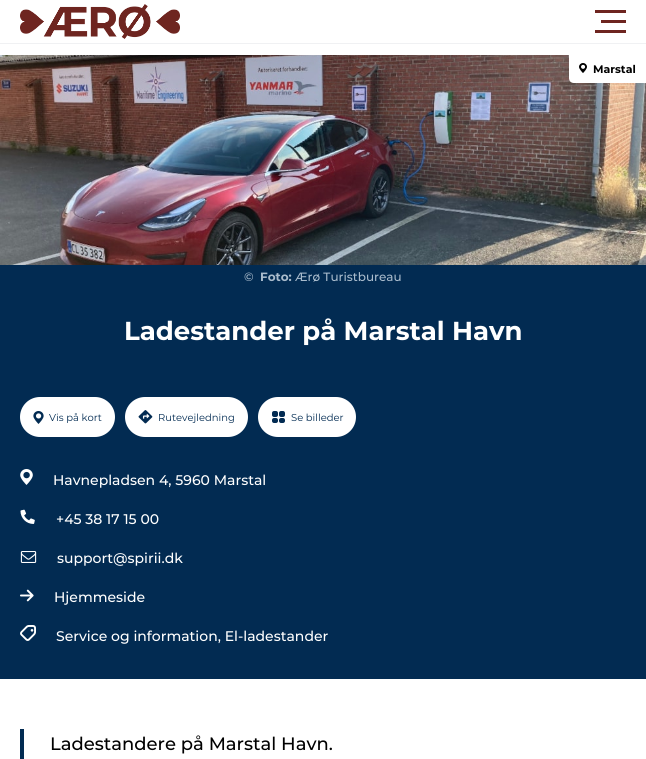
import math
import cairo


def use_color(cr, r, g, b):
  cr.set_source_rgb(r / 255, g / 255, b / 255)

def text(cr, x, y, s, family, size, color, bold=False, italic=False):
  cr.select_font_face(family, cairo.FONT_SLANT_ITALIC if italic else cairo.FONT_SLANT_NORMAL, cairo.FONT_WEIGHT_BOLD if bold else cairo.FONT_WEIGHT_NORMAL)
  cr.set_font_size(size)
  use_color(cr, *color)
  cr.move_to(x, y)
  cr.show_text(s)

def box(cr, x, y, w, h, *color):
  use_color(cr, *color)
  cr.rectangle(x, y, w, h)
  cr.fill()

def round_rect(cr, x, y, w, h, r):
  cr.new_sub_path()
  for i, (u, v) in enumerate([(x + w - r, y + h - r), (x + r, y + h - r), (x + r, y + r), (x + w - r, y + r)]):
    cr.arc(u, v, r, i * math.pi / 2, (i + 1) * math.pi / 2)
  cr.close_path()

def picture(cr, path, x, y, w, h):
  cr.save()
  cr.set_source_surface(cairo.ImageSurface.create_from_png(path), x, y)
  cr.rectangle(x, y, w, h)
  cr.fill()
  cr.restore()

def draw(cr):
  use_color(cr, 255, 255, 255)
  cr.paint()
  box(cr, 0, 43, 646, 1, 240, 241, 243)
  picture(cr, "img_01.png", 20, 4, 160, 35)
  box(cr, 595, 10, 31, 3, 110, 37, 32)
  box(cr, 601, 20, 25, 3, 110, 37, 32)
  box(cr, 595, 30, 31, 3, 110, 37, 32)
  picture(cr, "img_02.png", 0, 55, 646, 210)
  use_color(cr, 255, 255, 255)
  cr.new_path()
  cr.move_to(569, 55)
  cr.line_to(646, 55)
  cr.line_to(646, 83)
  cr.line_to(574, 83)
  cr.curve_to(571, 83, 569, 81, 569, 78)
  cr.close_path()
  cr.fill()
  picture(cr, "img_03.png", 579, 63, 8, 10)
  box(cr, 0, 265, 646, 414, 2, 43, 82)
  use_color(cr, 255, 255, 255)
  round_rect(cr, 20, 397, 95, 40, 20)
  cr.fill()
  picture(cr, "img_04.png", 33, 411, 11, 13)
  round_rect(cr, 125, 397, 123, 40, 20)
  cr.fill()
  picture(cr, "img_05.png", 138, 410, 15, 14)
  round_rect(cr, 258, 397, 98, 40, 20)
  cr.fill()
  picture(cr, "img_06.png", 272, 411, 13, 12)
  picture(cr, "img_07.png", 20, 469, 13, 16)
  picture(cr, "img_08.png", 20, 509, 15, 15)
  picture(cr, "img_09.png", 20, 551, 17, 12)
  picture(cr, "img_10.png", 20, 589, 14, 13)
  picture(cr, "img_11.png", 20, 625, 16, 16)
  box(cr, 20, 729, 4, 30, 2, 43, 82)
  text(cr, 593, 73, "Marstal", "Montserrat", 11, (0, 0, 0), bold=True)
  text(cr, 244, 281, "©", "Montserrat Medium", 12, (170, 188, 205))
  text(cr, 260, 281, "Foto:", "Montserrat", 12, (170, 188, 205), bold=True)
  text(cr, 295, 281, "Ærø Turistbureau", "Montserrat Medium", 12, (170, 188, 205))
  text(cr, 124, 340, "Ladestander på Marstal Havn", "Montserrat", 26, (255, 255, 255), bold=True)
  text(cr, 49, 421, "Vis på kort", "Montserrat", 10, (2, 43, 82))
  text(cr, 158, 421, "Rutevejledning", "Montserrat", 10, (2, 43, 82))
  text(cr, 291, 421, "Se billeder", "Montserrat", 10, (2, 43, 82))
  text(cr, 53, 485, "Havnepladsen 4, 5960 Marstal", "Montserrat Medium", 14, (255, 255, 255))
  text(cr, 56, 524, "+45 38 17 15 00", "Montserrat Medium", 14, (255, 255, 255))
  text(cr, 57, 563, "support@spirii.dk", "Montserrat Medium", 14, (255, 255, 255))
  text(cr, 54, 602, "Hjemmeside", "Montserrat Medium", 14, (255, 255, 255))
  text(cr, 56, 641, "Service og information, El-ladestander", "Montserrat Medium", 14, (255, 255, 255))
  text(cr, 50, 750, "Ladestandere på Marstal Havn.", "Montserrat Medium", 18, (0, 0, 0))


surface = cairo.ImageSurface(cairo.FORMAT_RGB24, 646, 759)
cr = cairo.Context(surface)
options = cairo.FontOptions()
options.set_hint_metrics(cairo.HINT_METRICS_OFF)
options.set_hint_style(cairo.HINT_STYLE_NONE)
cr.set_font_options(options)
cr.set_miter_limit(4)
draw(cr)
surface.write_to_png("out.png")
